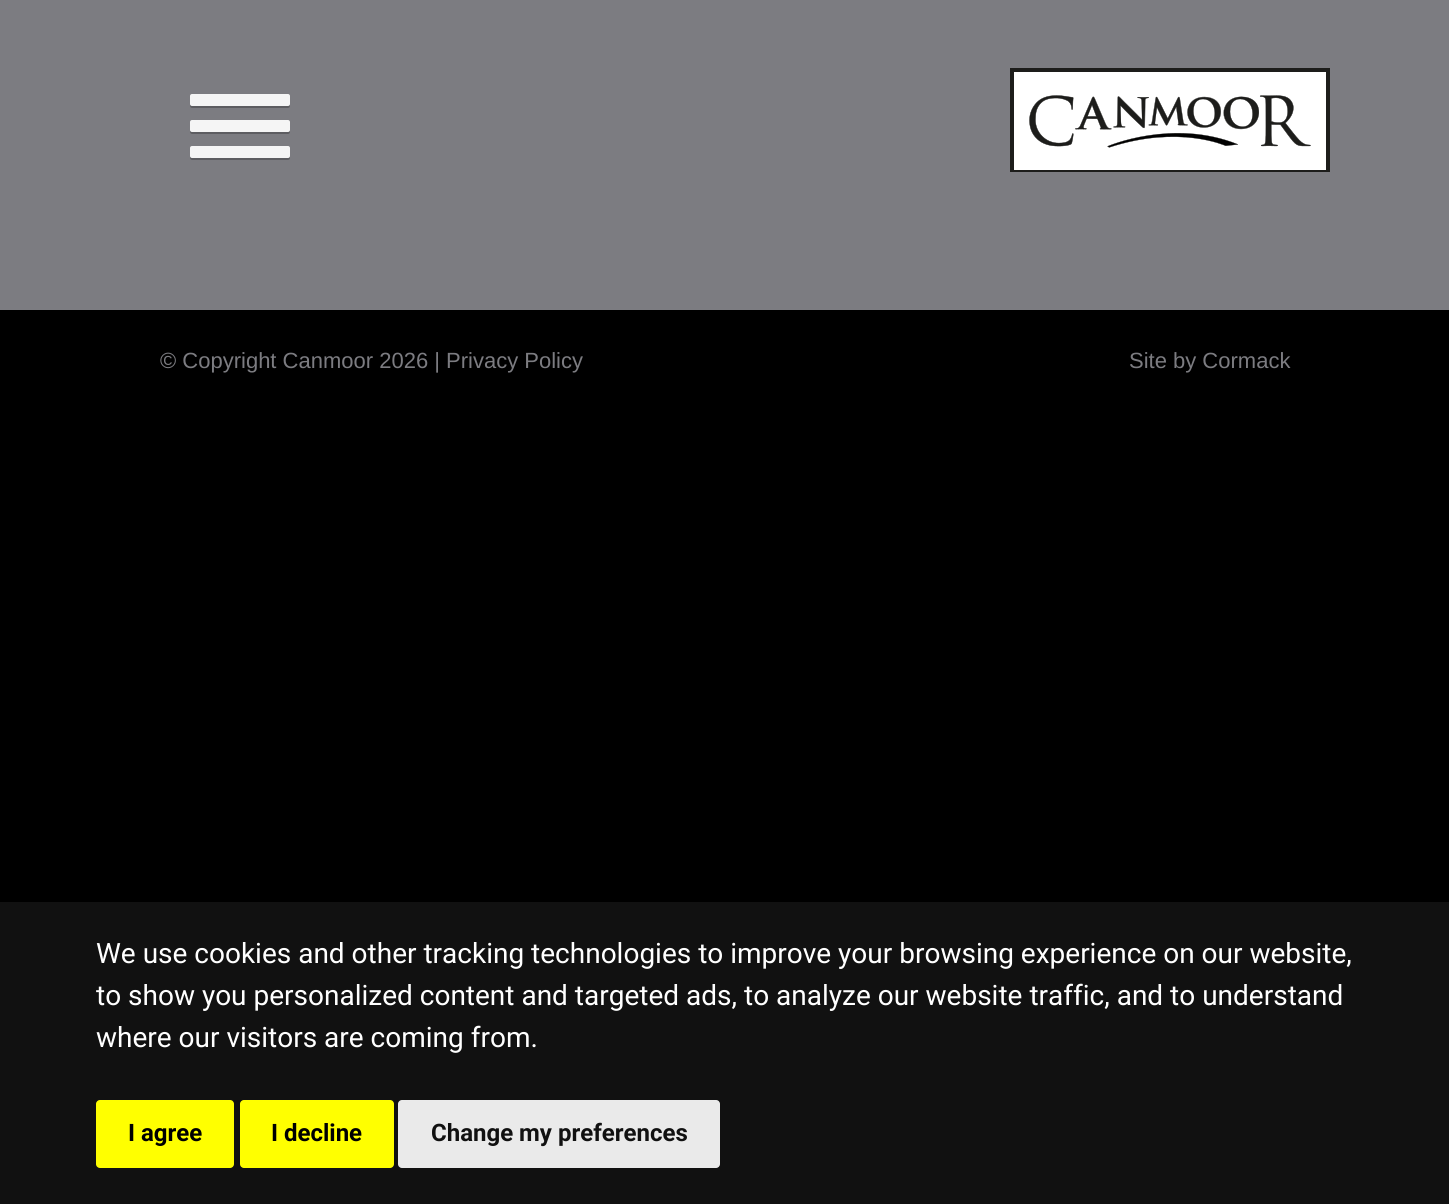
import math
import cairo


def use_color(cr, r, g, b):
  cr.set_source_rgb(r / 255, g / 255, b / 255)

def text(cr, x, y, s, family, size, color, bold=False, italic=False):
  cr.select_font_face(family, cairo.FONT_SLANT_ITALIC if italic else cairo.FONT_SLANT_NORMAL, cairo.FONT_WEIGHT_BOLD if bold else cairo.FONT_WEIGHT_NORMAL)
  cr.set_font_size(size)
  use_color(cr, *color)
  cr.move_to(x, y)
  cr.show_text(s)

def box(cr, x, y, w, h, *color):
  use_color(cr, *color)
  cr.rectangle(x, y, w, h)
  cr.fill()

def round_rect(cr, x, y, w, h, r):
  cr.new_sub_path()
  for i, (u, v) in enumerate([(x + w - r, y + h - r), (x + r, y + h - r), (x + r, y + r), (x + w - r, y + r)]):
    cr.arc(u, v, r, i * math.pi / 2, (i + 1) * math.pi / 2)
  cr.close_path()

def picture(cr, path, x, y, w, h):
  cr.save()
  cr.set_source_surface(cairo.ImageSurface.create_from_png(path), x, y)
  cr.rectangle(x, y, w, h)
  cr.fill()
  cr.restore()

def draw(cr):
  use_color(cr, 0, 0, 0)
  cr.paint()
  box(cr, 0, 0, 1449, 310, 124, 124, 129)
  picture(cr, "img_01.png", 1010, 68, 320, 104)
  use_color(cr, 93, 93, 97)
  cr.new_path()
  cr.move_to(190, 103)
  cr.line_to(190, 106)
  cr.curve_to(190, 107, 191, 108, 192, 108)
  cr.line_to(288, 108)
  cr.curve_to(289, 108, 290, 107, 290, 106)
  cr.line_to(290, 103)
  cr.curve_to(290, 104, 289, 105, 288, 105)
  cr.line_to(192, 105)
  cr.curve_to(191, 105, 190, 104, 190, 103)
  cr.close_path()
  cr.fill()
  use_color(cr, 245, 245, 245)
  round_rect(cr, 190, 94, 100, 12, 2)
  cr.fill()
  use_color(cr, 93, 93, 97)
  cr.new_path()
  cr.move_to(190, 129)
  cr.line_to(190, 132)
  cr.curve_to(190, 133, 191, 134, 192, 134)
  cr.line_to(288, 134)
  cr.curve_to(289, 134, 290, 133, 290, 132)
  cr.line_to(290, 129)
  cr.curve_to(290, 130, 289, 131, 288, 131)
  cr.line_to(192, 131)
  cr.curve_to(191, 131, 190, 130, 190, 129)
  cr.close_path()
  cr.fill()
  use_color(cr, 245, 245, 245)
  round_rect(cr, 190, 120, 100, 12, 2)
  cr.fill()
  use_color(cr, 93, 93, 97)
  cr.new_path()
  cr.move_to(190, 155)
  cr.line_to(190, 158)
  cr.curve_to(190, 159, 191, 160, 192, 160)
  cr.line_to(288, 160)
  cr.curve_to(289, 160, 290, 159, 290, 158)
  cr.line_to(290, 155)
  cr.curve_to(290, 156, 289, 157, 288, 157)
  cr.line_to(192, 157)
  cr.curve_to(191, 157, 190, 156, 190, 155)
  cr.close_path()
  cr.fill()
  use_color(cr, 245, 245, 245)
  round_rect(cr, 190, 146, 100, 12, 2)
  cr.fill()
  box(cr, 0, 902, 1449, 302, 17, 17, 17)
  use_color(cr, 255, 255, 0)
  round_rect(cr, 96, 1100, 138, 68, 4)
  cr.fill()
  round_rect(cr, 240, 1100, 154, 68, 4)
  cr.fill()
  use_color(cr, 234, 234, 234)
  round_rect(cr, 398, 1100, 322, 68, 4)
  cr.fill()
  text(cr, 160, 368, "© Copyright Canmoor 2026 | Privacy Policy", "Liberation Sans", 22, (124, 124, 129))
  text(cr, 1129, 368, "Site by Cormack", "Liberation Sans", 22, (124, 124, 129))
  text(cr, 96, 963, "We use cookies and other tracking technologies to improve your browsing experience on our website,", "Roboto", 28, (255, 255, 255))
  text(cr, 96, 1005, "to show you personalized content and targeted ads, to analyze our website traffic, and to understand", "Roboto", 28, (255, 255, 255))
  text(cr, 96, 1047, "where our visitors are coming from.", "Roboto", 28, (255, 255, 255))
  text(cr, 128, 1141, "I agree", "Roboto", 24, (0, 0, 0), bold=True)
  text(cr, 271, 1141, "I decline", "Roboto", 24, (0, 0, 0), bold=True)
  text(cr, 431, 1141, "Change my preferences", "Roboto", 24, (17, 17, 17), bold=True)


surface = cairo.ImageSurface(cairo.FORMAT_RGB24, 1449, 1204)
cr = cairo.Context(surface)
options = cairo.FontOptions()
options.set_hint_metrics(cairo.HINT_METRICS_OFF)
options.set_hint_style(cairo.HINT_STYLE_NONE)
cr.set_font_options(options)
cr.set_miter_limit(4)
draw(cr)
surface.write_to_png("out.png")
